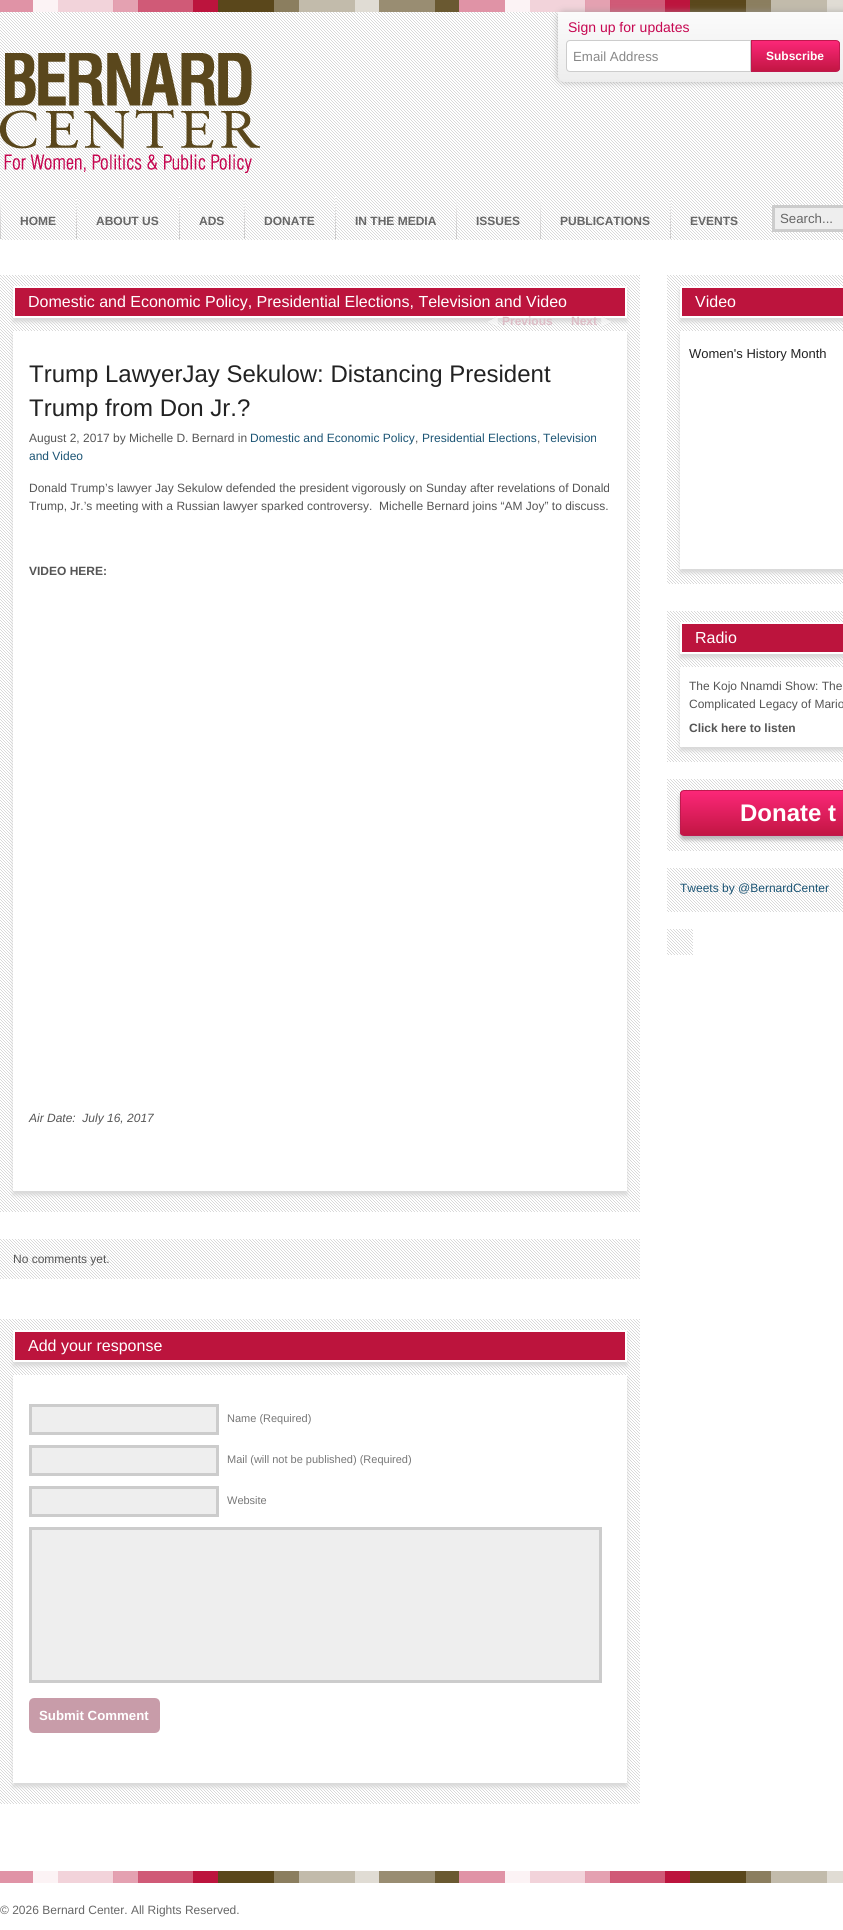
import math
import cairo


def use_color(cr, r, g, b):
  cr.set_source_rgb(r / 255, g / 255, b / 255)

def text(cr, x, y, s, family, size, color, bold=False, italic=False):
  cr.select_font_face(family, cairo.FONT_SLANT_ITALIC if italic else cairo.FONT_SLANT_NORMAL, cairo.FONT_WEIGHT_BOLD if bold else cairo.FONT_WEIGHT_NORMAL)
  cr.set_font_size(size)
  use_color(cr, *color)
  cr.move_to(x, y)
  cr.show_text(s)

def box(cr, x, y, w, h, *color):
  use_color(cr, *color)
  cr.rectangle(x, y, w, h)
  cr.fill()

def round_rect(cr, x, y, w, h, r):
  cr.new_sub_path()
  for i, (u, v) in enumerate([(x + w - r, y + h - r), (x + r, y + h - r), (x + r, y + r), (x + w - r, y + r)]):
    cr.arc(u, v, r, i * math.pi / 2, (i + 1) * math.pi / 2)
  cr.close_path()

def shadow(cr, x, y, w, h, r, blur, alpha):
  cr.push_group_with_content(cairo.CONTENT_ALPHA)
  cr.set_operator(cairo.OPERATOR_SOURCE)
  for i in range(15, -16, -2):
    e = blur * i / 6
    if min(w, h) + 2 * e > 0:
      cr.set_source_rgba(0, 0, 0, alpha * math.erfc((i - 1) / 8.5) / 2)
      round_rect(cr, x - e, y - e, w + 2 * e, h + 2 * e, max(0, min(r + e + blur * .6, min(w, h) / 2 + e)))
      cr.fill()
  cr.mask(cr.pop_group())

def picture(cr, path, x, y, w, h):
  cr.save()
  cr.set_source_surface(cairo.ImageSurface.create_from_png(path), x, y)
  cr.rectangle(x, y, w, h)
  cr.fill()
  cr.restore()

def draw(cr):
  use_color(cr, 255, 255, 255)
  cr.paint()
  picture(cr, "img_01.png", 0, 0, 843, 12)
  picture(cr, "img_02.png", 0, 12, 843, 228)
  use_color(cr, 155, 155, 155)
  shadow(cr, 558, 12, 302, 70, 6, 3.5, 0.7)
  gradient = cairo.LinearGradient(765, 12, 765, 82)
  gradient.add_color_stop_rgba(0, 0.984, 0.984, 0.984, 1)
  gradient.add_color_stop_rgba(1, 0.929, 0.929, 0.929, 1)
  cr.set_source(gradient)
  cr.new_path()
  cr.move_to(558, 12)
  cr.line_to(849, 12)
  cr.line_to(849, 76)
  cr.curve_to(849, 79.5, 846.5, 82, 843, 82)
  cr.line_to(564, 82)
  cr.curve_to(560.5, 82, 558, 79.5, 558, 76)
  cr.close_path()
  cr.fill()
  use_color(cr, 255, 255, 255)
  cr.new_path()
  cr.move_to(570, 40.5)
  cr.line_to(750.5, 40.5)
  cr.line_to(750.5, 71.5)
  cr.line_to(570, 71.5)
  cr.curve_to(568, 71.5, 566.5, 70, 566.5, 68)
  cr.line_to(566.5, 44)
  cr.curve_to(566.5, 42, 568, 40.5, 570, 40.5)
  cr.close_path()
  cr.fill_preserve()
  use_color(cr, 204, 204, 204)
  cr.set_line_width(1)
  cr.stroke()
  cr.save()
  cr.new_path()
  cr.move_to(751, 40)
  cr.line_to(836, 40)
  cr.curve_to(838, 40, 840, 42, 840, 44)
  cr.line_to(840, 68)
  cr.curve_to(840, 70, 838, 72, 836, 72)
  cr.line_to(751, 72)
  cr.close_path()
  cr.clip()
  gradient = cairo.LinearGradient(796, 41, 796, 71)
  gradient.add_color_stop_rgba(0, 0.988, 0.153, 0.471, 1)
  gradient.add_color_stop_rgba(1, 0.761, 0.086, 0.263, 1)
  cr.set_source(gradient)
  cr.rectangle(752, 41, 88, 30)
  cr.fill()
  cr.restore()
  cr.new_path()
  cr.move_to(751.5, 40.5)
  cr.line_to(836, 40.5)
  cr.curve_to(838, 40.5, 839.5, 42, 839.5, 44)
  cr.line_to(839.5, 68)
  cr.curve_to(839.5, 70, 838, 71.5, 836, 71.5)
  cr.line_to(751.5, 71.5)
  cr.close_path()
  use_color(cr, 191, 25, 78)
  cr.stroke()
  picture(cr, "img_03.png", 0, 198, 1, 41)
  picture(cr, "img_03.png", 76, 198, 1, 41)
  picture(cr, "img_04.png", 179, 197, 1, 42)
  picture(cr, "img_03.png", 244, 198, 1, 41)
  picture(cr, "img_04.png", 335, 197, 1, 42)
  picture(cr, "img_03.png", 456, 198, 1, 41)
  picture(cr, "img_03.png", 540, 198, 1, 41)
  picture(cr, "img_03.png", 670, 198, 1, 41)
  use_color(cr, 238, 238, 238)
  cr.rectangle(773.5, 206.5, 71, 24)
  cr.fill_preserve()
  use_color(cr, 204, 204, 204)
  cr.set_line_width(3)
  cr.stroke()
  picture(cr, "img_05.png", 0, 53, 260, 120)
  picture(cr, "img_06.png", 0, 275, 640, 937)
  use_color(cr, 216, 216, 216)
  shadow(cr, 13, 290, 614, 32, 0, 2, 1)
  use_color(cr, 188, 20, 61)
  cr.rectangle(14, 287, 612, 30)
  cr.fill_preserve()
  use_color(cr, 255, 255, 255)
  cr.set_line_width(2)
  cr.stroke()
  picture(cr, "img_07.png", 488, 316, 10, 11)
  picture(cr, "img_08.png", 601, 316, 11, 11)
  use_color(cr, 216, 216, 216)
  shadow(cr, 13, 335, 614, 860, 0, 2, 1)
  box(cr, 13, 331, 614, 860, 255, 255, 255)
  picture(cr, "img_09.png", 0, 1239, 640, 40)
  picture(cr, "img_10.png", 0, 1319, 640, 485)
  use_color(cr, 216, 216, 216)
  shadow(cr, 13, 1334, 614, 32, 0, 2, 1)
  use_color(cr, 188, 20, 61)
  cr.rectangle(14, 1331, 612, 30)
  cr.fill_preserve()
  use_color(cr, 255, 255, 255)
  cr.stroke()
  use_color(cr, 216, 216, 216)
  shadow(cr, 13, 1379, 614, 408, 0, 2, 1)
  box(cr, 13, 1375, 614, 408, 255, 255, 255)
  use_color(cr, 238, 238, 238)
  cr.rectangle(30.5, 1405.5, 187, 28)
  cr.fill_preserve()
  use_color(cr, 204, 204, 204)
  cr.set_line_width(3)
  cr.stroke()
  use_color(cr, 238, 238, 238)
  cr.rectangle(30.5, 1446.5, 187, 28)
  cr.fill_preserve()
  use_color(cr, 204, 204, 204)
  cr.stroke()
  use_color(cr, 238, 238, 238)
  cr.rectangle(30.5, 1487.5, 187, 28)
  cr.fill_preserve()
  use_color(cr, 204, 204, 204)
  cr.stroke()
  use_color(cr, 238, 238, 238)
  cr.rectangle(30.5, 1528.5, 570, 153)
  cr.fill_preserve()
  use_color(cr, 204, 204, 204)
  cr.stroke()
  use_color(cr, 200, 156, 169)
  round_rect(cr, 30.5, 1699.5, 128, 32, 3.5)
  cr.fill_preserve()
  cr.stroke()
  picture(cr, "img_11.png", 667, 275, 176, 309)
  use_color(cr, 216, 216, 216)
  shadow(cr, 680, 290, 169, 32, 0, 2, 1)
  use_color(cr, 188, 20, 61)
  cr.rectangle(681, 287, 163, 30)
  cr.fill_preserve()
  use_color(cr, 255, 255, 255)
  cr.set_line_width(2)
  cr.stroke()
  use_color(cr, 216, 216, 216)
  shadow(cr, 680, 335, 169, 238, 0, 2, 1)
  box(cr, 680, 331, 163, 238, 255, 255, 255)
  picture(cr, "img_12.png", 667, 611, 176, 151)
  use_color(cr, 216, 216, 216)
  shadow(cr, 680, 626, 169, 32, 0, 2, 1)
  use_color(cr, 188, 20, 61)
  cr.rectangle(681, 623, 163, 30)
  cr.fill_preserve()
  use_color(cr, 255, 255, 255)
  cr.stroke()
  use_color(cr, 216, 216, 216)
  shadow(cr, 680, 671, 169, 80, 0, 2, 1)
  box(cr, 680, 667, 163, 80, 255, 255, 255)
  picture(cr, "img_13.png", 667, 779, 176, 72)
  use_color(cr, 184, 184, 184)
  shadow(cr, 680, 794, 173, 46, 4, 2, 1)
  cr.save()
  round_rect(cr, 680, 790, 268, 46, 4)
  cr.clip()
  gradient = cairo.LinearGradient(814, 791, 814, 835)
  gradient.add_color_stop_rgba(0, 0.988, 0.153, 0.471, 1)
  gradient.add_color_stop_rgba(1, 0.761, 0.086, 0.263, 1)
  cr.set_source(gradient)
  cr.rectangle(680, 791, 163, 44)
  cr.fill()
  cr.restore()
  round_rect(cr, 680.5, 790.5, 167, 45, 3.5)
  use_color(cr, 191, 25, 78)
  cr.set_line_width(1)
  cr.stroke()
  picture(cr, "img_14.png", 667, 868, 176, 44)
  picture(cr, "img_15.png", 667, 929, 26, 26)
  picture(cr, "img_01.png", 0, 1871, 843, 12)
  text(cr, 568, 32, "Sign up for updates", "Liberation Sans", 14, (198, 7, 81))
  text(cr, 573, 61, "Email Address", "Liberation Sans", 13.25, (136, 136, 136))
  text(cr, 766, 60, "Subscribe", "Liberation Sans", 12, (255, 255, 255), bold=True)
  text(cr, 20, 225, "HOME", "Liberation Sans", 12, (102, 102, 102), bold=True)
  text(cr, 96, 225, "ABOUT US", "Liberation Sans", 12, (102, 102, 102), bold=True)
  text(cr, 199, 225, "ADS", "Liberation Sans", 12, (102, 102, 102), bold=True)
  text(cr, 264, 225, "DONATE", "Liberation Sans", 12, (102, 102, 102), bold=True)
  text(cr, 355, 225, "IN THE MEDIA", "Liberation Sans", 12, (102, 102, 102), bold=True)
  text(cr, 476, 225, "ISSUES", "Liberation Sans", 12, (102, 102, 102), bold=True)
  text(cr, 560, 225, "PUBLICATIONS", "Liberation Sans", 12, (102, 102, 102), bold=True)
  text(cr, 690, 225, "EVENTS", "Liberation Sans", 12, (102, 102, 102), bold=True)
  text(cr, 780, 223, "Search...", "Liberation Sans", 13.25, (102, 102, 102))
  text(cr, 28, 307, "Domestic and Economic Policy, Presidential Elections, Television and Video", "Liberation Sans", 16, (255, 255, 255))
  text(cr, 502, 325, "Previous", "Liberation Sans", 12, (220, 188, 197), bold=True)
  text(cr, 571, 325, "Next", "Liberation Sans", 12, (220, 188, 197), bold=True)
  text(cr, 29, 382, "Trump LawyerJay Sekulow: Distancing President", "Liberation Sans", 24, (34, 34, 34))
  text(cr, 29, 416, "Trump from Don Jr.?", "Liberation Sans", 24, (34, 34, 34))
  text(cr, 29, 442, "August 2, 2017 by Michelle D. Bernard in", "Liberation Sans", 12, (85, 85, 85))
  text(cr, 250, 442, "Domestic and Economic Policy", "Liberation Sans", 12, (27, 84, 116))
  text(cr, 415, 442, ",", "Liberation Sans", 12, (85, 85, 85))
  text(cr, 422, 442, "Presidential Elections", "Liberation Sans", 12, (27, 84, 116))
  text(cr, 537, 442, ",", "Liberation Sans", 12, (85, 85, 85))
  text(cr, 543, 442, "Television", "Liberation Sans", 12, (27, 84, 116))
  text(cr, 29, 460, "and Video", "Liberation Sans", 12, (27, 84, 116))
  text(cr, 29, 492, "Donald Trump’s lawyer Jay Sekulow defended the president vigorously on Sunday after revelations of Donald", "Liberation Sans", 12, (85, 85, 85))
  text(cr, 29, 510, "Trump, Jr.’s meeting with a Russian lawyer sparked controversy.  Michelle Bernard joins “AM Joy” to discuss.", "Liberation Sans", 12, (85, 85, 85))
  text(cr, 29, 575, "VIDEO HERE:", "Liberation Sans", 12, (85, 85, 85), bold=True)
  text(cr, 29, 1122, "Air Date:  July 16, 2017", "Liberation Sans", 12, (85, 85, 85), italic=True)
  text(cr, 13, 1263, "No comments yet.", "Liberation Sans", 12, (85, 85, 85))
  text(cr, 28, 1351, "Add your response", "Liberation Sans", 16, (255, 255, 255))
  text(cr, 227, 1422, "Name (Required)", "Liberation Sans", 11, (119, 119, 119))
  text(cr, 227, 1463, "Mail (will not be published) (Required)", "Liberation Sans", 11, (119, 119, 119))
  text(cr, 227, 1504, "Website", "Liberation Sans", 11, (119, 119, 119))
  text(cr, 39, 1720, "Submit Comment", "Liberation Sans", 13.25, (255, 255, 255), bold=True)
  text(cr, 695, 307, "Video", "Liberation Sans", 16, (255, 255, 255))
  text(cr, 689, 358, "Women's History Month", "Liberation Sans", 13, (34, 34, 34))
  text(cr, 695, 643, "Radio", "Liberation Sans", 16, (255, 255, 255))
  text(cr, 689, 690, "The Kojo Nnamdi Show: The", "Liberation Sans", 12, (85, 85, 85))
  text(cr, 689, 708, "Complicated Legacy of Mario", "Liberation Sans", 12, (85, 85, 85))
  text(cr, 689, 732, "Click here to listen", "Liberation Sans", 12, (85, 85, 85), bold=True)
  text(cr, 740, 821, "Donate t", "Liberation Sans", 24, (255, 255, 255), bold=True)
  text(cr, 680, 892, "Tweets by @BernardCenter", "Liberation Sans", 12, (27, 84, 116))
  text(cr, 0, 1914, "© 2026 Bernard Center. All Rights Reserved.", "Liberation Sans", 12, (102, 102, 102))


surface = cairo.ImageSurface(cairo.FORMAT_RGB24, 843, 1930)
cr = cairo.Context(surface)
options = cairo.FontOptions()
options.set_hint_metrics(cairo.HINT_METRICS_OFF)
options.set_hint_style(cairo.HINT_STYLE_NONE)
cr.set_font_options(options)
cr.set_miter_limit(4)
draw(cr)
surface.write_to_png("out.png")
